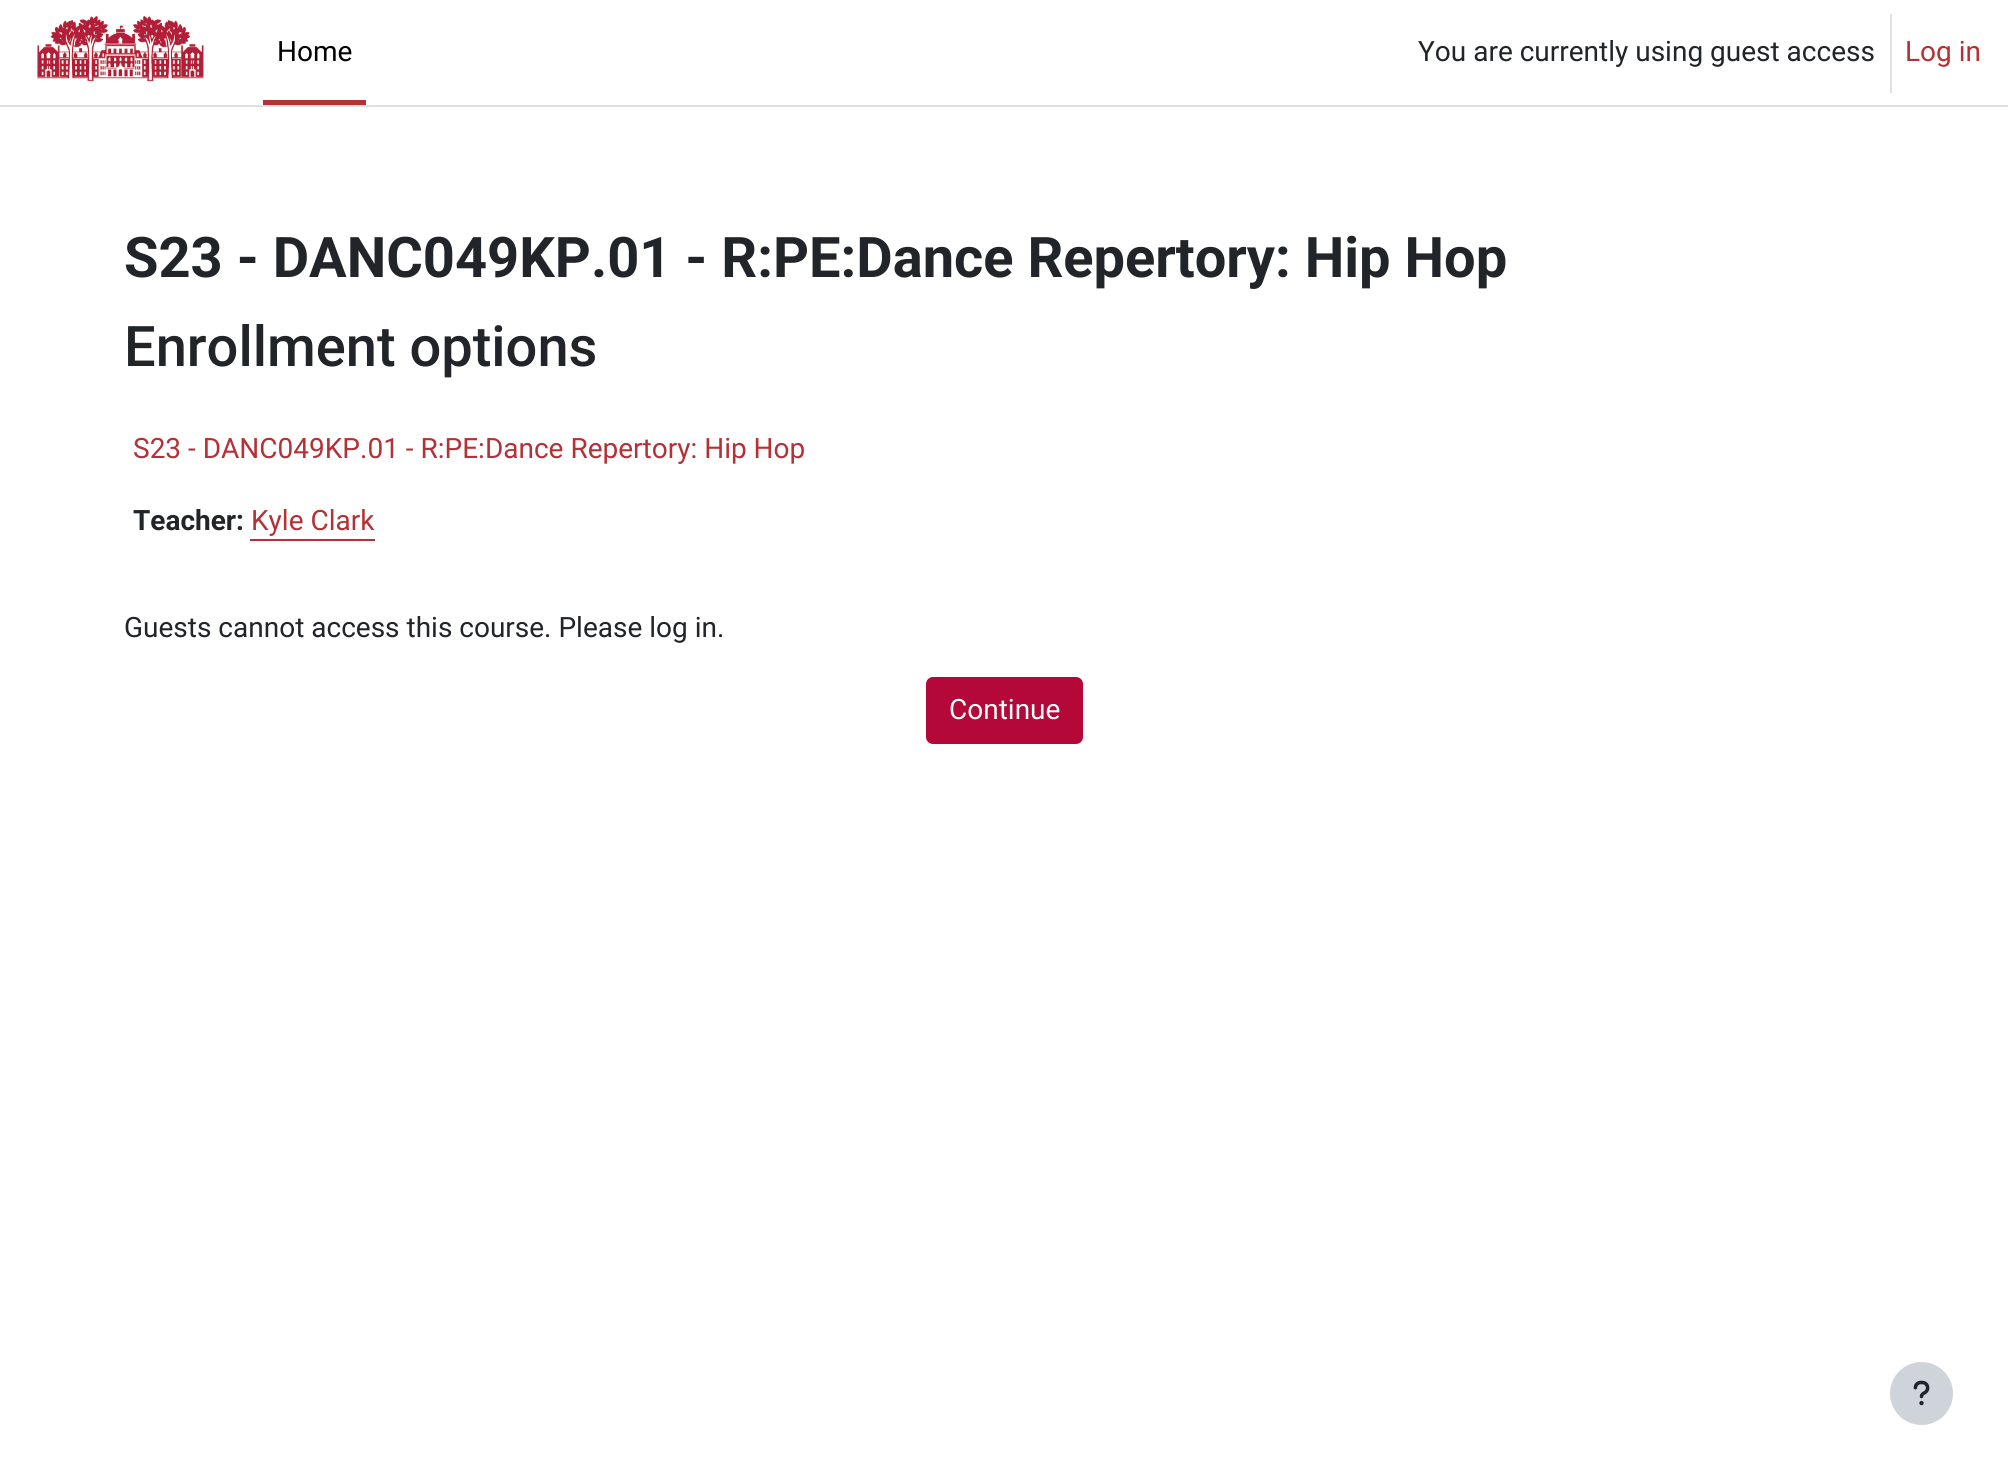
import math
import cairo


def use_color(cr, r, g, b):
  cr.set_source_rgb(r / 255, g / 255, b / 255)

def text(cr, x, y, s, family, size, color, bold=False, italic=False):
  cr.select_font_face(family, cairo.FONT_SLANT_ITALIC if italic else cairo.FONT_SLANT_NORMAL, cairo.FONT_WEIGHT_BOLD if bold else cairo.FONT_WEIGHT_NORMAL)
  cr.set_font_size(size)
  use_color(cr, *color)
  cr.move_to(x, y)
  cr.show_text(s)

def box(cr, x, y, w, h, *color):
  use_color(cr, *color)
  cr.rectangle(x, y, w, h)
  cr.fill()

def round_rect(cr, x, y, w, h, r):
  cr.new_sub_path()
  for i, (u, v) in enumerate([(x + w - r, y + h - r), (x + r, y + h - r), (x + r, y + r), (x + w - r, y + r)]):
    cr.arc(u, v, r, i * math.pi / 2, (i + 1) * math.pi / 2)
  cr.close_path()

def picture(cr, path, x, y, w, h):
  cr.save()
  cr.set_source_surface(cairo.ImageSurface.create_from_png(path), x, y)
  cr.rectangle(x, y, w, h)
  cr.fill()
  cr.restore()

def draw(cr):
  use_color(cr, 255, 255, 255)
  cr.paint()
  box(cr, 0, 105, 2008, 2, 222, 226, 230)
  picture(cr, "img_01.png", 37, 15, 167, 67)
  box(cr, 263, 100, 103, 5, 180, 49, 53)
  box(cr, 1890, 14, 2, 79, 222, 226, 230)
  box(cr, 250, 539, 125, 2, 180, 49, 53)
  use_color(cr, 179, 8, 56)
  round_rect(cr, 927, 678, 155, 65, 6)
  cr.fill_preserve()
  cr.stroke()
  use_color(cr, 206, 212, 218)
  cr.arc(1921.5, 1393.5, 31.5, 0, 2 * math.pi)
  cr.fill()
  picture(cr, "img_02.png", 1913, 1380, 17, 26)
  text(cr, 277, 61, "Home", "Roboto", 28, (0, 0, 0))
  text(cr, 1418, 61, "You are currently using guest access", "Roboto", 28, (33, 37, 41))
  text(cr, 1905, 61, "Log in", "Roboto", 28, (180, 49, 53))
  text(cr, 124, 277, "S23 - DANC049KP.01 - R:PE:Dance Repertory: Hip Hop", "Roboto", 56, (33, 37, 41), bold=True)
  text(cr, 124, 366, "Enrollment options", "Roboto Medium", 56, (33, 37, 41))
  text(cr, 133, 458, "S23 - DANC049KP.01 - R:PE:Dance Repertory: Hip Hop", "Roboto", 28, (180, 49, 53))
  text(cr, 133, 530, "Teacher:", "Roboto", 28, (33, 37, 41), bold=True)
  text(cr, 251, 530, "Kyle Clark", "Roboto", 28, (180, 49, 53))
  text(cr, 124, 637, "Guests cannot access this course. Please log in.", "Roboto", 28, (33, 37, 41))
  text(cr, 949, 719, "Continue", "Roboto", 28, (255, 255, 255))


surface = cairo.ImageSurface(cairo.FORMAT_RGB24, 2008, 1479)
cr = cairo.Context(surface)
options = cairo.FontOptions()
options.set_hint_metrics(cairo.HINT_METRICS_OFF)
options.set_hint_style(cairo.HINT_STYLE_NONE)
cr.set_font_options(options)
cr.set_miter_limit(4)
draw(cr)
surface.write_to_png("out.png")
